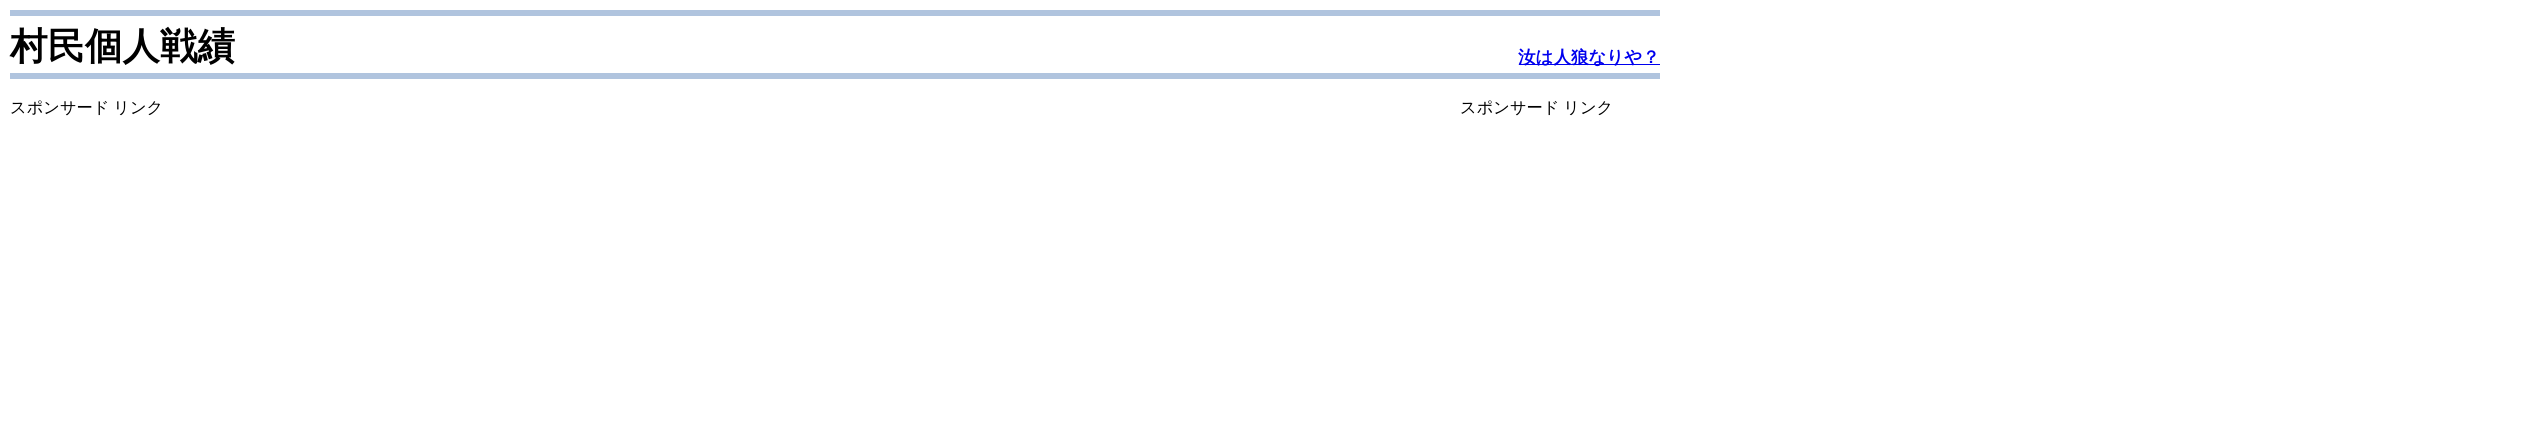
import math
import cairo


def use_color(cr, r, g, b):
  cr.set_source_rgb(r / 255, g / 255, b / 255)

def text(cr, x, y, s, family, size, color, bold=False, italic=False):
  cr.select_font_face(family, cairo.FONT_SLANT_ITALIC if italic else cairo.FONT_SLANT_NORMAL, cairo.FONT_WEIGHT_BOLD if bold else cairo.FONT_WEIGHT_NORMAL)
  cr.set_font_size(size)
  use_color(cr, *color)
  cr.move_to(x, y)
  cr.show_text(s)

def spaced_text(cr, x, y, s, letter, word):
  cr.move_to(x, y)
  for ch in s:
    cr.show_text(ch)
    cr.rel_move_to(letter + word * (ch == ' '), 0)

def box(cr, x, y, w, h, *color):
  use_color(cr, *color)
  cr.rectangle(x, y, w, h)
  cr.fill()

def draw(cr):
  use_color(cr, 255, 255, 255)
  cr.paint()
  box(cr, 10, 10, 1650, 6, 176, 196, 222)
  box(cr, 1519, 64, 141, 1, 0, 0, 238)
  box(cr, 10, 73, 1650, 6, 176, 196, 222)
  text(cr, 10, 59, "村民個人戦績", "WenQuanYi Zen Hei", 37.5, (0, 0, 0), bold=True)
  text(cr, 1518, 63, "汝は人狼なりや？", "WenQuanYi Zen Hei", 17.5, (0, 0, 238), bold=True)
  cr.select_font_face("WenQuanYi Zen Hei Medium")
  cr.set_font_size(16.25)
  use_color(cr, 0, 0, 0)
  spaced_text(cr, 10, 113, "スポンサード リンク", 0, -1)
  spaced_text(cr, 1460, 113, "スポンサード リンク", 0, -1)


surface = cairo.ImageSurface(cairo.FORMAT_RGB24, 2541, 424)
cr = cairo.Context(surface)
options = cairo.FontOptions()
options.set_hint_metrics(cairo.HINT_METRICS_OFF)
options.set_hint_style(cairo.HINT_STYLE_NONE)
cr.set_font_options(options)
cr.set_miter_limit(4)
draw(cr)
surface.write_to_png("out.png")
